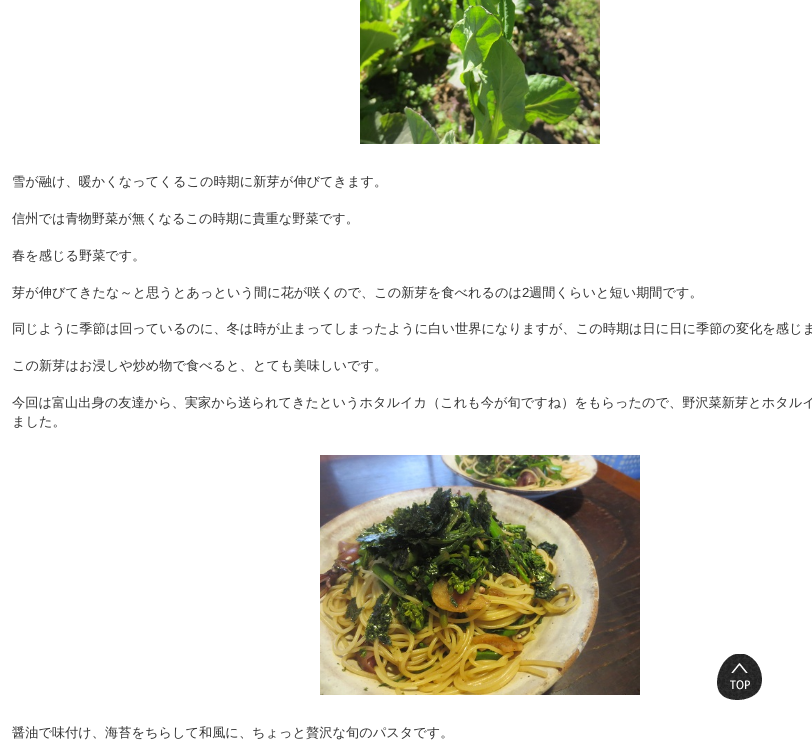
import math
import cairo


def use_color(cr, r, g, b):
  cr.set_source_rgb(r / 255, g / 255, b / 255)

def text(cr, x, y, s, family, size, color, bold=False, italic=False):
  cr.select_font_face(family, cairo.FONT_SLANT_ITALIC if italic else cairo.FONT_SLANT_NORMAL, cairo.FONT_WEIGHT_BOLD if bold else cairo.FONT_WEIGHT_NORMAL)
  cr.set_font_size(size)
  use_color(cr, *color)
  cr.move_to(x, y)
  cr.show_text(s)

def picture(cr, path, x, y, w, h):
  cr.save()
  cr.set_source_surface(cairo.ImageSurface.create_from_png(path), x, y)
  cr.rectangle(x, y, w, h)
  cr.fill()
  cr.restore()

def draw(cr):
  use_color(cr, 255, 255, 255)
  cr.paint()
  picture(cr, "img_01.png", 360, 0, 240, 144)
  picture(cr, "img_02.png", 320, 455, 320, 240)
  picture(cr, "img_03.png", 717, 654, 45, 46)
  text(cr, 12, 186, "雪が融け、暖かくなってくるこの時期に新芽が伸びてきます。", "WenQuanYi Zen Hei Medium", 13.2, (51, 51, 51))
  text(cr, 12, 223, "信州では青物野菜が無くなるこの時期に貴重な野菜です。", "WenQuanYi Zen Hei Medium", 13.2, (51, 51, 51))
  text(cr, 12, 260, "春を感じる野菜です。", "WenQuanYi Zen Hei Medium", 13.2, (51, 51, 51))
  text(cr, 12, 297, "芽が伸びてきたな～と思うとあっという間に花が咲くので、この新芽を食べれるのは", "WenQuanYi Zen Hei Medium", 13.2, (51, 51, 51))
  text(cr, 522, 297, "2", "Liberation Sans", 13.2, (51, 51, 51))
  text(cr, 529, 297, "週間くらいと短い期間です。", "WenQuanYi Zen Hei Medium", 13.2, (51, 51, 51))
  text(cr, 12, 333, "同じように季節は回っているのに、冬は時が止まってしまったように白い世界になりますが、この時期は日に日に季節の変化を感じま", "WenQuanYi Zen Hei Medium", 13.2, (51, 51, 51))
  text(cr, 12, 370, "この新芽はお浸しや炒め物で食べると、とても美味しいです。", "WenQuanYi Zen Hei Medium", 13.2, (51, 51, 51))
  text(cr, 12, 407, "今回は富山出身の友達から、実家から送られてきたというホタルイカ（これも今が旬ですね）をもらったので、野沢菜新芽とホタルイ", "WenQuanYi Zen Hei Medium", 13.2, (51, 51, 51))
  text(cr, 12, 426, "ました。", "WenQuanYi Zen Hei Medium", 13.2, (51, 51, 51))
  text(cr, 12, 737, "醤油で味付け、海苔をちらして和風に、ちょっと贅沢な旬のパスタです。", "WenQuanYi Zen Hei Medium", 13.2, (51, 51, 51))


surface = cairo.ImageSurface(cairo.FORMAT_RGB24, 812, 747)
cr = cairo.Context(surface)
options = cairo.FontOptions()
options.set_hint_metrics(cairo.HINT_METRICS_OFF)
options.set_hint_style(cairo.HINT_STYLE_NONE)
cr.set_font_options(options)
cr.set_miter_limit(4)
draw(cr)
surface.write_to_png("out.png")
